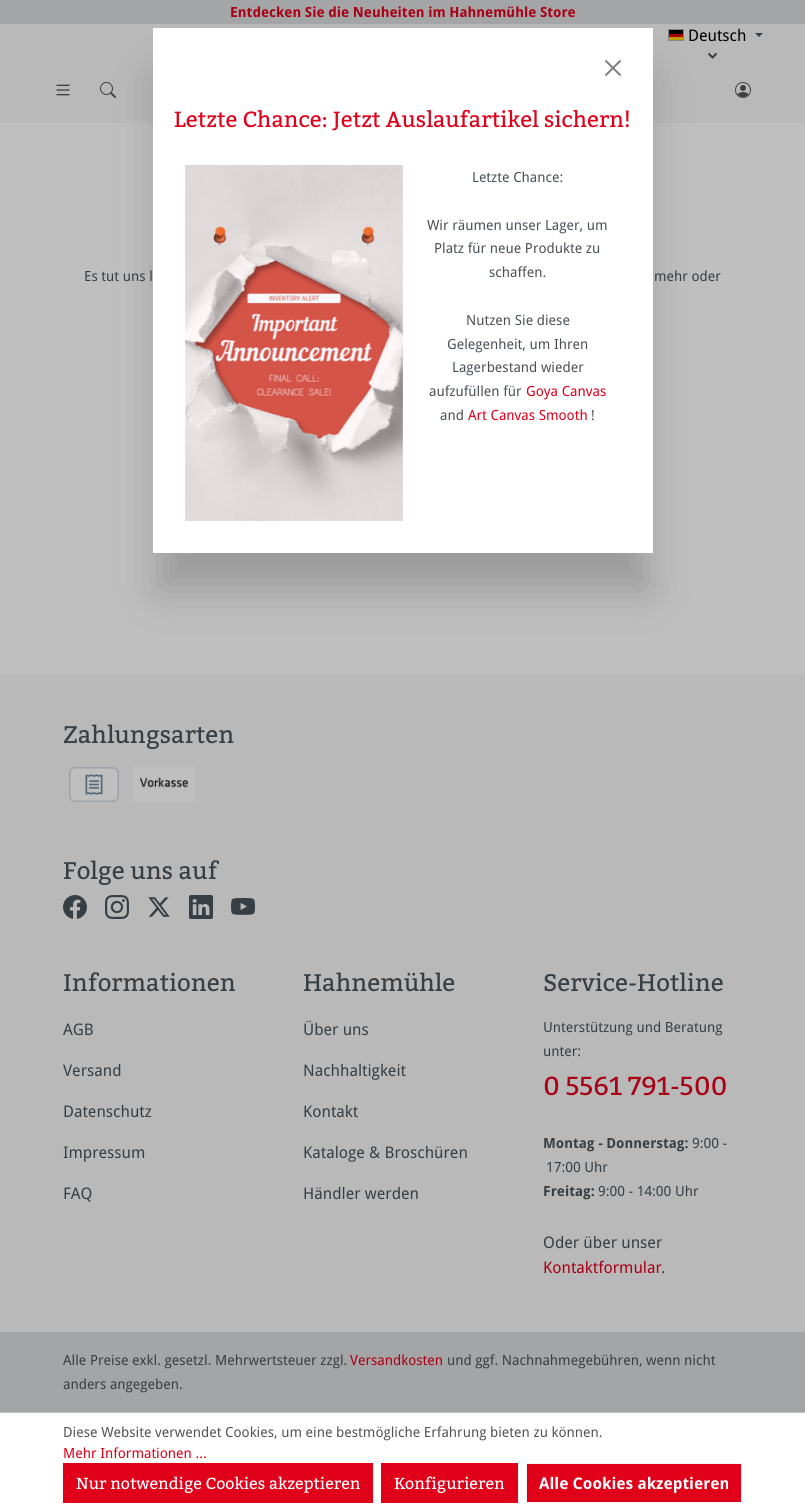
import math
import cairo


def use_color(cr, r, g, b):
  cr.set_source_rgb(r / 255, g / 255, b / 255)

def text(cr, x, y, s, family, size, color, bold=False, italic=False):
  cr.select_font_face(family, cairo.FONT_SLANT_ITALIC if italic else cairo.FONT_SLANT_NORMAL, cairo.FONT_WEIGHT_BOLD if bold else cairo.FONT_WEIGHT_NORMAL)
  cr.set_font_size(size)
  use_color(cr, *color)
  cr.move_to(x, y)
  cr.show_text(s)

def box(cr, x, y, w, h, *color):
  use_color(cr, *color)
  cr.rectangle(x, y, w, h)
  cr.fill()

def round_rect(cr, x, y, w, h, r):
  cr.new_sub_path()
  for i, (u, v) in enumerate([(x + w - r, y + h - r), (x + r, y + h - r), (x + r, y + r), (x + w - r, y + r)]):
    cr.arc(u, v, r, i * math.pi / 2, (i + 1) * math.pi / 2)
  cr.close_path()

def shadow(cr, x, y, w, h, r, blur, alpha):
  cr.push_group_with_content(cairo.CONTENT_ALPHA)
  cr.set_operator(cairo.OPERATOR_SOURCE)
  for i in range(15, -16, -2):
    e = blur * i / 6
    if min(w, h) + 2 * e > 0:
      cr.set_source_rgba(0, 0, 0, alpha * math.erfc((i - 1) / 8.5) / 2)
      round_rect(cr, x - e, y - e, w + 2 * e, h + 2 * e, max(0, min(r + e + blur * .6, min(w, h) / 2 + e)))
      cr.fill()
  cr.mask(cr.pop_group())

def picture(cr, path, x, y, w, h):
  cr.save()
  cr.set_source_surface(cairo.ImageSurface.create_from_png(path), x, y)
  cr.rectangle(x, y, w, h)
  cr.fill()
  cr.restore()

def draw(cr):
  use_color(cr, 191, 191, 191)
  cr.paint()
  box(cr, 0, 24, 805, 99, 185, 185, 185)
  box(cr, 0, 0, 805, 24, 164, 165, 167)
  box(cr, 669, 37, 14, 3, 191, 155, 0)
  box(cr, 669, 30, 14, 4, 0, 0, 0)
  box(cr, 669, 34, 14, 3, 166, 0, 0)
  cr.rectangle(668.5, 29.5, 15, 11)
  use_color(cr, 130, 136, 142)
  cr.set_line_width(1)
  cr.stroke()
  use_color(cr, 56, 63, 68)
  cr.new_path()
  cr.move_to(755, 33)
  cr.line_to(763, 33)
  cr.line_to(759, 37)
  cr.close_path()
  cr.fill()
  cr.new_path()
  cr.move_to(708.5, 53.5)
  cr.line_to(712.5, 57.5)
  cr.line_to(716.5, 53.5)
  cr.set_line_width(2)
  cr.stroke()
  picture(cr, "img_01.png", 735, 82, 16, 16)
  picture(cr, "img_02.png", 56, 84, 14, 12)
  picture(cr, "img_03.png", 100, 82, 16, 16)
  use_color(cr, 0, 0, 0)
  shadow(cr, 159, 77, 488, 513, 0, 21.5, 0.2)
  box(cr, 153, 28, 500, 525, 255, 255, 255)
  picture(cr, "img_04.png", 605, 60, 16, 16)
  picture(cr, "img_05.png", 185, 165, 218, 356)
  box(cr, 0, 674, 805, 658, 185, 185, 185)
  picture(cr, "img_06.png", 69, 767, 50, 35)
  picture(cr, "img_07.png", 133, 767, 62, 35)
  picture(cr, "img_08.png", 63, 895, 24, 24)
  picture(cr, "img_09.png", 105, 895, 24, 24)
  picture(cr, "img_10.png", 148, 897, 22, 20)
  picture(cr, "img_11.png", 189, 895, 24, 24)
  picture(cr, "img_12.png", 231, 898, 24, 17)
  box(cr, 0, 1332, 805, 80, 164, 165, 167)
  box(cr, 0, 1413, 805, 98, 255, 255, 255)
  box(cr, 0, 1412, 805, 1, 188, 193, 199)
  box(cr, 63, 1463, 310, 40, 225, 0, 26)
  box(cr, 381, 1463, 137, 40, 225, 0, 26)
  cr.rectangle(526.5, 1463.5, 215, 39)
  cr.fill_preserve()
  use_color(cr, 243, 243, 243)
  cr.set_line_width(1)
  cr.stroke()
  text(cr, 230, 17, "Entdecken Sie die Neuheiten im Hahnemühle Store", "Droid Sans", 14, (169, 0, 20), bold=True)
  text(cr, 688, 41, "Deutsch", "Droid Sans", 16, (0, 0, 0))
  text(cr, 174, 127, "Letzte Chance: Jetzt Auslaufartikel sichern!", "Bitter", 22, (225, 0, 26))
  text(cr, 472, 182, "Letzte Chance:", "Droid Sans", 14, (74, 84, 91))
  text(cr, 427, 230, "Wir räumen unser Lager, um", "Droid Sans", 14, (74, 84, 91))
  text(cr, 434, 253, "Platz für neue Produkte zu", "Droid Sans", 14, (74, 84, 91))
  text(cr, 489, 277, "schaffen.", "Droid Sans", 14, (74, 84, 91))
  text(cr, 466, 325, "Nutzen Sie diese", "Droid Sans", 14, (74, 84, 91))
  text(cr, 447, 349, "Gelegenheit, um Ihren", "Droid Sans", 14, (74, 84, 91))
  text(cr, 452, 372, "Lagerbestand wieder", "Droid Sans", 14, (74, 84, 91))
  text(cr, 429, 396, "aufzufüllen für", "Droid Sans", 14, (74, 84, 91))
  text(cr, 526, 396, "Goya Canvas", "Droid Sans", 14, (225, 0, 26))
  text(cr, 440, 420, "and", "Droid Sans", 14, (74, 84, 91))
  text(cr, 468, 420, "Art Canvas Smooth", "Droid Sans", 14, (225, 0, 26))
  text(cr, 591, 420, "!", "Droid Sans", 14, (74, 84, 91))
  text(cr, 84, 281, "Es tut uns l", "Droid Sans", 14, (56, 63, 68))
  text(cr, 654, 281, "mehr oder", "Droid Sans", 14, (56, 63, 68))
  text(cr, 63, 743, "Zahlungsarten", "Bitter", 24, (56, 63, 68))
  text(cr, 63, 879, "Folge uns auf", "Bitter", 24, (56, 63, 68))
  text(cr, 63, 991, "Informationen", "Bitter", 24, (56, 63, 68))
  text(cr, 63, 1035, "AGB", "Droid Sans", 16, (56, 63, 68))
  text(cr, 63, 1076, "Versand", "Droid Sans", 16, (56, 63, 68))
  text(cr, 63, 1117, "Datenschutz", "Droid Sans", 16, (56, 63, 68))
  text(cr, 63, 1158, "Impressum", "Droid Sans", 16, (56, 63, 68))
  text(cr, 63, 1199, "FAQ", "Droid Sans", 16, (56, 63, 68))
  text(cr, 303, 991, "Hahnemühle", "Bitter", 24, (56, 63, 68))
  text(cr, 303, 1035, "Über uns", "Droid Sans", 16, (56, 63, 68))
  text(cr, 303, 1076, "Nachhaltigkeit", "Droid Sans", 16, (56, 63, 68))
  text(cr, 303, 1117, "Kontakt", "Droid Sans", 16, (56, 63, 68))
  text(cr, 303, 1158, "Kataloge & Broschüren", "Droid Sans", 16, (56, 63, 68))
  text(cr, 303, 1199, "Händler werden", "Droid Sans", 16, (56, 63, 68))
  text(cr, 543, 991, "Service-Hotline", "Bitter", 24, (56, 63, 68))
  text(cr, 543, 1032, "Unterstützung und Beratung", "Droid Sans", 14, (56, 63, 68))
  text(cr, 543, 1056, "unter:", "Droid Sans", 14, (56, 63, 68))
  text(cr, 543, 1095, "0 5561 791-500", "Bitter", 26, (169, 0, 20))
  text(cr, 543, 1148, "Montag - Donnerstag:", "Droid Sans", 14, (56, 63, 68), bold=True)
  text(cr, 692, 1148, "9:00 -", "Droid Sans", 14, (56, 63, 68))
  text(cr, 546, 1172, "17:00 Uhr", "Droid Sans", 14, (56, 63, 68))
  text(cr, 543, 1196, "Freitag:", "Droid Sans", 14, (56, 63, 68), bold=True)
  text(cr, 598, 1196, "9:00 - 14:00 Uhr", "Droid Sans", 14, (56, 63, 68))
  text(cr, 543, 1248, "Oder über unser", "Droid Sans", 16, (56, 63, 68))
  text(cr, 543, 1273, "Kontaktformular", "Droid Sans", 16, (169, 0, 20))
  text(cr, 661, 1273, ".", "Droid Sans", 16, (56, 63, 68))
  text(cr, 63, 1365, "Alle Preise exkl. gesetzl. Mehrwertsteuer zzgl.", "Droid Sans", 14, (56, 63, 68))
  text(cr, 350, 1365, "Versandkosten", "Droid Sans", 14, (169, 0, 20))
  text(cr, 447, 1365, "und ggf. Nachnahmegebühren, wenn nicht", "Droid Sans", 14, (56, 63, 68))
  text(cr, 63, 1389, "anders angegeben.", "Droid Sans", 14, (56, 63, 68))
  text(cr, 63, 1437, "Diese Website verwendet Cookies, um eine bestmögliche Erfahrung bieten zu können.", "Droid Sans", 14, (85, 85, 85))
  text(cr, 63, 1458, "Mehr Informationen ...", "Droid Sans", 14, (225, 0, 26))
  text(cr, 76, 1489, "Nur notwendige Cookies akzeptieren", "Bitter", 16, (255, 255, 255))
  text(cr, 394, 1489, "Konfigurieren", "Bitter", 16, (255, 255, 255))
  text(cr, 539, 1489, "Alle Cookies akzeptieren", "Droid Sans", 16, (255, 255, 255), bold=True)


surface = cairo.ImageSurface(cairo.FORMAT_RGB24, 805, 1511)
cr = cairo.Context(surface)
options = cairo.FontOptions()
options.set_hint_metrics(cairo.HINT_METRICS_OFF)
options.set_hint_style(cairo.HINT_STYLE_NONE)
cr.set_font_options(options)
cr.set_miter_limit(4)
draw(cr)
surface.write_to_png("out.png")
